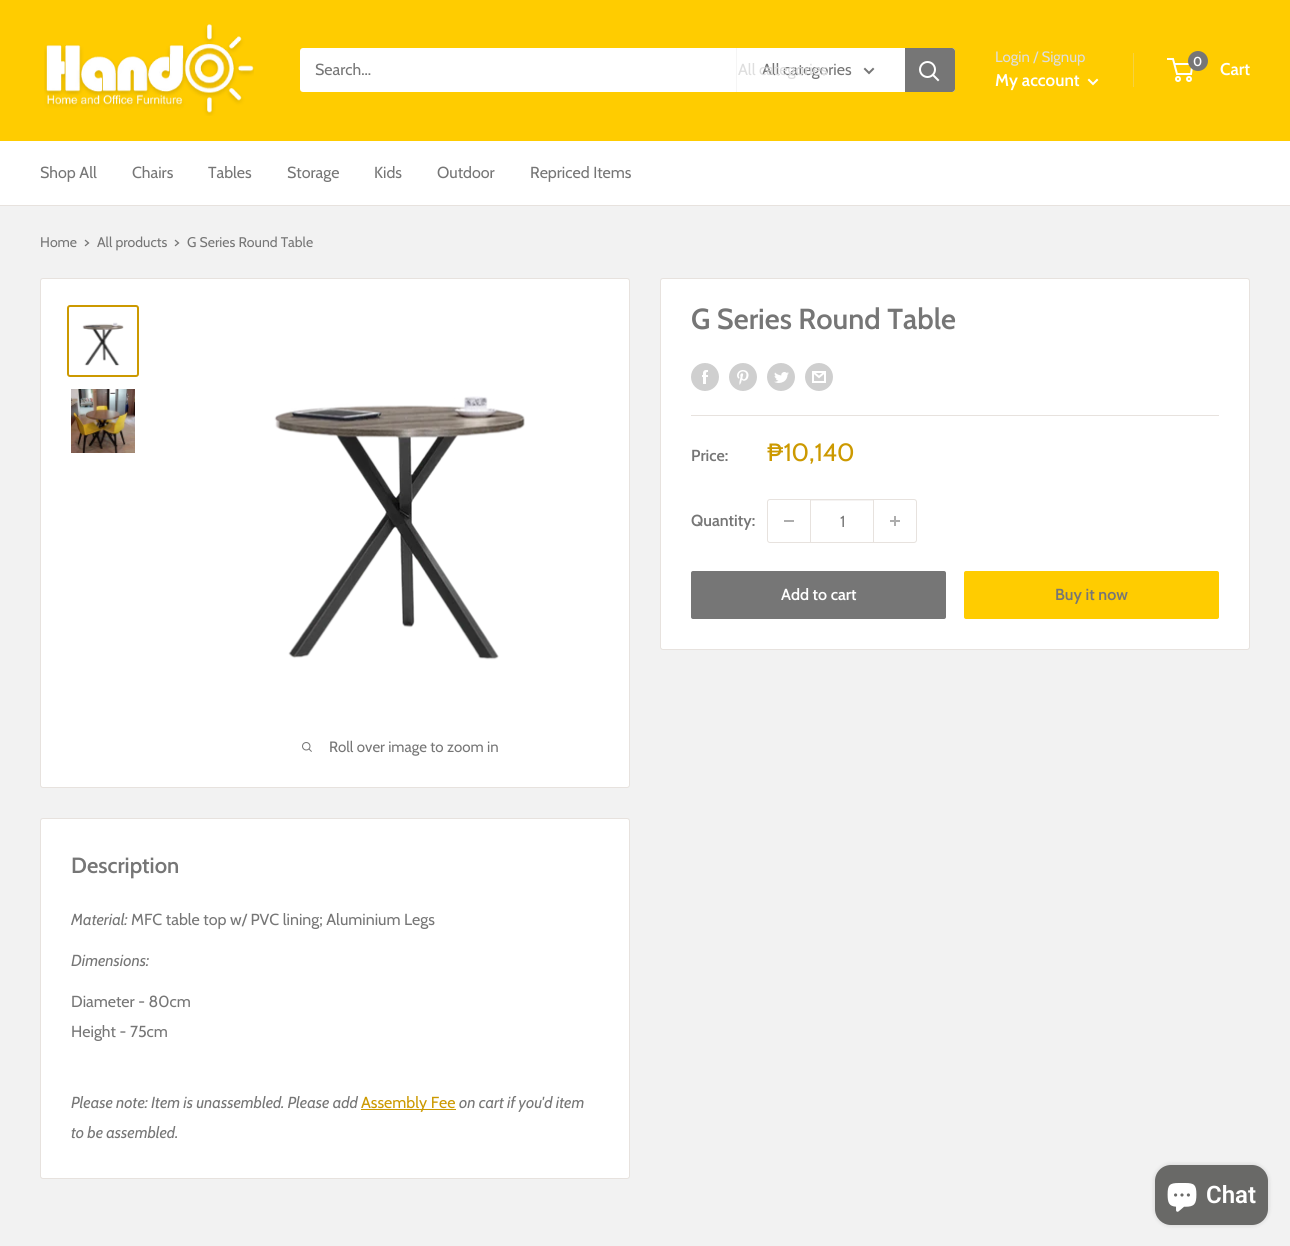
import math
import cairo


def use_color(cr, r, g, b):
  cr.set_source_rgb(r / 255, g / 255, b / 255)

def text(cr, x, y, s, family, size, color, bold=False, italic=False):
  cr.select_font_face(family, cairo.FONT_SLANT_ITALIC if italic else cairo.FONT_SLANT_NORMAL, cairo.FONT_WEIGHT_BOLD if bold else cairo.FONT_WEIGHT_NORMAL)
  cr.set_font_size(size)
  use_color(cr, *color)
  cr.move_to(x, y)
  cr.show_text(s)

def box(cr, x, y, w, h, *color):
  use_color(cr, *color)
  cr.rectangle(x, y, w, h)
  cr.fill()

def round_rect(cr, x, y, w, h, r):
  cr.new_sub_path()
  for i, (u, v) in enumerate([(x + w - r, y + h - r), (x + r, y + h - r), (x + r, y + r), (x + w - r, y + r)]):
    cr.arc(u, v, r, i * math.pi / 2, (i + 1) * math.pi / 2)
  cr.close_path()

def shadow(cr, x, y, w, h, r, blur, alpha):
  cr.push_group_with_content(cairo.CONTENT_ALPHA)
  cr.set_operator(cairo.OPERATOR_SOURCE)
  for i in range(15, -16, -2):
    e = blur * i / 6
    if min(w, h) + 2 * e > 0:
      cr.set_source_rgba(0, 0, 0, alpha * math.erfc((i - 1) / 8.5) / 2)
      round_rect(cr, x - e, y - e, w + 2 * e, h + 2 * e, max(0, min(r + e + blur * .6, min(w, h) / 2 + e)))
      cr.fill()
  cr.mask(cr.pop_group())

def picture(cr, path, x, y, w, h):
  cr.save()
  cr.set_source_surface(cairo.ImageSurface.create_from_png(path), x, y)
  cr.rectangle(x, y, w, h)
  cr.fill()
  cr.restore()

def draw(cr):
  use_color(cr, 242, 242, 242)
  cr.paint()
  box(cr, 0, 0, 1290, 141, 255, 204, 0)
  picture(cr, "img_01.png", 44, 24, 210, 92)
  use_color(cr, 255, 255, 255)
  round_rect(cr, 300, 48, 655, 44, 3)
  cr.fill()
  box(cr, 736, 48, 1, 44, 245, 245, 245)
  cr.new_path()
  cr.move_to(873, 69)
  cr.line_to(869, 73)
  cr.line_to(865, 69)
  use_color(cr, 118, 118, 118)
  cr.set_line_cap(cairo.LINE_CAP_SQUARE)
  cr.stroke()
  cr.new_path()
  cr.move_to(905, 48)
  cr.line_to(952, 48)
  cr.curve_to(953.5, 48, 955, 49.5, 955, 51)
  cr.line_to(955, 89)
  cr.curve_to(955, 90.5, 953.5, 92, 952, 92)
  cr.line_to(905, 92)
  cr.close_path()
  cr.fill()
  cr.new_path()
  cr.move_to(938, 80)
  cr.line_to(933, 75)
  use_color(cr, 255, 255, 255)
  cr.stroke()
  cr.arc(927.5, 69.5, 7.5, 0, 2 * math.pi)
  cr.set_line_cap(cairo.LINE_CAP_BUTT)
  cr.stroke()
  box(cr, 1133, 53, 1, 34, 245, 209, 67)
  cr.new_path()
  cr.move_to(1097, 80)
  cr.line_to(1093, 84)
  cr.line_to(1089, 80)
  use_color(cr, 255, 255, 255)
  cr.set_line_cap(cairo.LINE_CAP_SQUARE)
  cr.stroke()
  cr.arc(1178, 79, 2, 0, 2 * math.pi)
  cr.set_line_cap(cairo.LINE_CAP_BUTT)
  cr.stroke()
  cr.arc(1189, 79, 2, 0, 2 * math.pi)
  cr.stroke()
  cr.new_path()
  cr.move_to(1174.5, 64)
  cr.line_to(1192.5, 64)
  cr.line_to(1191, 74)
  cr.line_to(1177, 74)
  cr.line_to(1173, 59)
  cr.line_to(1167, 59)
  cr.stroke()
  use_color(cr, 118, 118, 118)
  cr.arc(1198, 61, 10, 0, 2 * math.pi)
  cr.fill()
  box(cr, 0, 141, 1290, 64, 255, 255, 255)
  box(cr, 0, 205, 1290, 1, 231, 226, 222)
  cr.new_path()
  cr.move_to(85.5, 240.5)
  cr.line_to(88.5, 243)
  cr.line_to(85.5, 245.5)
  use_color(cr, 118, 118, 118)
  cr.set_line_width(1.3)
  cr.set_line_cap(cairo.LINE_CAP_SQUARE)
  cr.stroke()
  cr.new_path()
  cr.move_to(175.5, 240.5)
  cr.line_to(178.5, 243)
  cr.line_to(175.5, 245.5)
  cr.stroke()
  use_color(cr, 255, 255, 255)
  round_rect(cr, 660.5, 278.5, 589, 371, 2.5)
  cr.fill_preserve()
  use_color(cr, 231, 226, 222)
  cr.set_line_width(1)
  cr.set_line_cap(cairo.LINE_CAP_BUTT)
  cr.stroke()
  picture(cr, "img_02.png", 691, 363, 28, 28)
  picture(cr, "img_03.png", 729, 363, 28, 28)
  picture(cr, "img_04.png", 767, 363, 28, 28)
  picture(cr, "img_05.png", 805, 363, 28, 28)
  box(cr, 691, 415, 528, 1, 231, 226, 222)
  round_rect(cr, 767.5, 499.5, 149, 43, 2.5)
  cr.stroke()
  box(cr, 784, 520, 10, 2, 173, 173, 173)
  box(cr, 811, 500, 62, 1, 245, 243, 242)
  box(cr, 873, 500, 1, 42, 231, 226, 222)
  box(cr, 810, 500, 1, 42, 231, 226, 222)
  picture(cr, "img_06.png", 890, 516, 10, 10)
  use_color(cr, 118, 118, 118)
  round_rect(cr, 691, 571, 255, 48, 2)
  cr.fill()
  use_color(cr, 255, 204, 0)
  round_rect(cr, 964, 571, 255, 48, 2)
  cr.fill()
  use_color(cr, 255, 255, 255)
  round_rect(cr, 40.5, 278.5, 589, 509, 2.5)
  cr.fill_preserve()
  use_color(cr, 231, 226, 222)
  cr.stroke()
  round_rect(cr, 68, 306, 70, 70, 2)
  use_color(cr, 204, 153, 0)
  cr.set_line_width(2)
  cr.stroke()
  picture(cr, "img_07.png", 82, 322, 42, 44)
  picture(cr, "img_08.png", 71, 389, 64, 64)
  picture(cr, "img_09.png", 274, 396, 251, 264)
  picture(cr, "img_10.png", 302, 742, 10, 10)
  use_color(cr, 255, 255, 255)
  round_rect(cr, 40.5, 818.5, 589, 360, 2.5)
  cr.fill_preserve()
  use_color(cr, 231, 226, 222)
  cr.set_line_width(1)
  cr.stroke()
  box(cr, 361, 1109, 95, 1, 204, 153, 0)
  use_color(cr, 0, 0, 0)
  shadow(cr, 1155, 1165, 113, 60, 16, 2.5, 0.15)
  use_color(cr, 105, 105, 103)
  round_rect(cr, 1155, 1165, 113, 60, 16)
  cr.fill()
  picture(cr, "img_11.png", 1167, 1183, 30, 29)
  text(cr, 315, 75, "Search...", "Cabin", 16, (118, 118, 118))
  text(cr, 762, 75, "All categories", "Cabin", 16, (118, 118, 118))
  text(cr, 738, 75, "All categories", "Cabin", 16, (222, 222, 222))
  text(cr, 995, 62, "Login / Signup", "Cabin", 15, (222, 222, 222))
  text(cr, 995, 86, "My account", "Cabin SemiBold", 17, (255, 255, 255))
  text(cr, 1193, 66, "0", "Cabin SemiBold", 13, (255, 255, 255))
  text(cr, 1220, 75, "Cart", "Cabin SemiBold", 17, (255, 255, 255))
  text(cr, 40, 178, "Shop All", "Cabin", 16, (118, 118, 118))
  text(cr, 132, 178, "Chairs", "Cabin", 16, (118, 118, 118))
  text(cr, 208, 178, "Tables", "Cabin", 16, (118, 118, 118))
  text(cr, 287, 178, "Storage", "Cabin", 16, (118, 118, 118))
  text(cr, 374, 178, "Kids", "Cabin", 16, (118, 118, 118))
  text(cr, 437, 178, "Outdoor", "Cabin", 16, (118, 118, 118))
  text(cr, 530, 178, "Repriced Items", "Cabin", 16, (118, 118, 118))
  text(cr, 40, 247, "Home", "Cabin", 14, (118, 118, 118))
  text(cr, 97, 247, "All products", "Cabin", 14, (118, 118, 118))
  text(cr, 187, 247, "G Series Round Table", "Cabin", 14, (118, 118, 118))
  text(cr, 691, 329, "G Series Round Table", "Cabin SemiBold", 29, (118, 118, 118))
  text(cr, 691, 461, "Price:", "Cabin SemiBold", 16, (118, 118, 118))
  text(cr, 767, 461, "₱10,140", "Cabin", 25, (204, 153, 0))
  text(cr, 691, 526, "Quantity:", "Cabin SemiBold", 16, (118, 118, 118))
  text(cr, 840, 527, "1", "Cabin", 16, (118, 118, 118))
  text(cr, 781, 600, "Add to cart", "Cabin SemiBold", 16, (255, 255, 255))
  text(cr, 1055, 600, "Buy it now", "Cabin SemiBold", 16, (118, 118, 118))
  text(cr, 329, 752, "Roll over image to zoom in", "Cabin", 15, (118, 118, 118))
  text(cr, 71, 873, "Description", "Cabin SemiBold", 22, (118, 118, 118))
  text(cr, 71, 925, "Material:", "Cabin", 16, (118, 118, 118), italic=True)
  text(cr, 131, 925, "MFC table top w/ PVC lining; Aluminium Legs", "Cabin", 16, (118, 118, 118))
  text(cr, 71, 966, "Dimensions:", "Cabin", 16, (118, 118, 118), italic=True)
  text(cr, 71, 1007, "Diameter - 80cm", "Cabin", 16, (118, 118, 118))
  text(cr, 71, 1037, "Height - 75cm", "Cabin", 16, (118, 118, 118))
  text(cr, 71, 1108, "Please note: Item is unassembled. Please add", "Cabin", 16, (118, 118, 118), italic=True)
  text(cr, 361, 1108, "Assembly Fee", "Cabin", 16, (204, 153, 0))
  text(cr, 459, 1108, "on cart if you'd item", "Cabin", 16, (118, 118, 118), italic=True)
  text(cr, 71, 1138, "to be assembled.", "Cabin", 16, (118, 118, 118), italic=True)
  text(cr, 1206, 1203, "Chat", "Roboto SemiBold", 24, (255, 255, 255))


surface = cairo.ImageSurface(cairo.FORMAT_RGB24, 1290, 1246)
cr = cairo.Context(surface)
options = cairo.FontOptions()
options.set_hint_metrics(cairo.HINT_METRICS_OFF)
options.set_hint_style(cairo.HINT_STYLE_NONE)
cr.set_font_options(options)
cr.set_miter_limit(4)
draw(cr)
surface.write_to_png("out.png")
